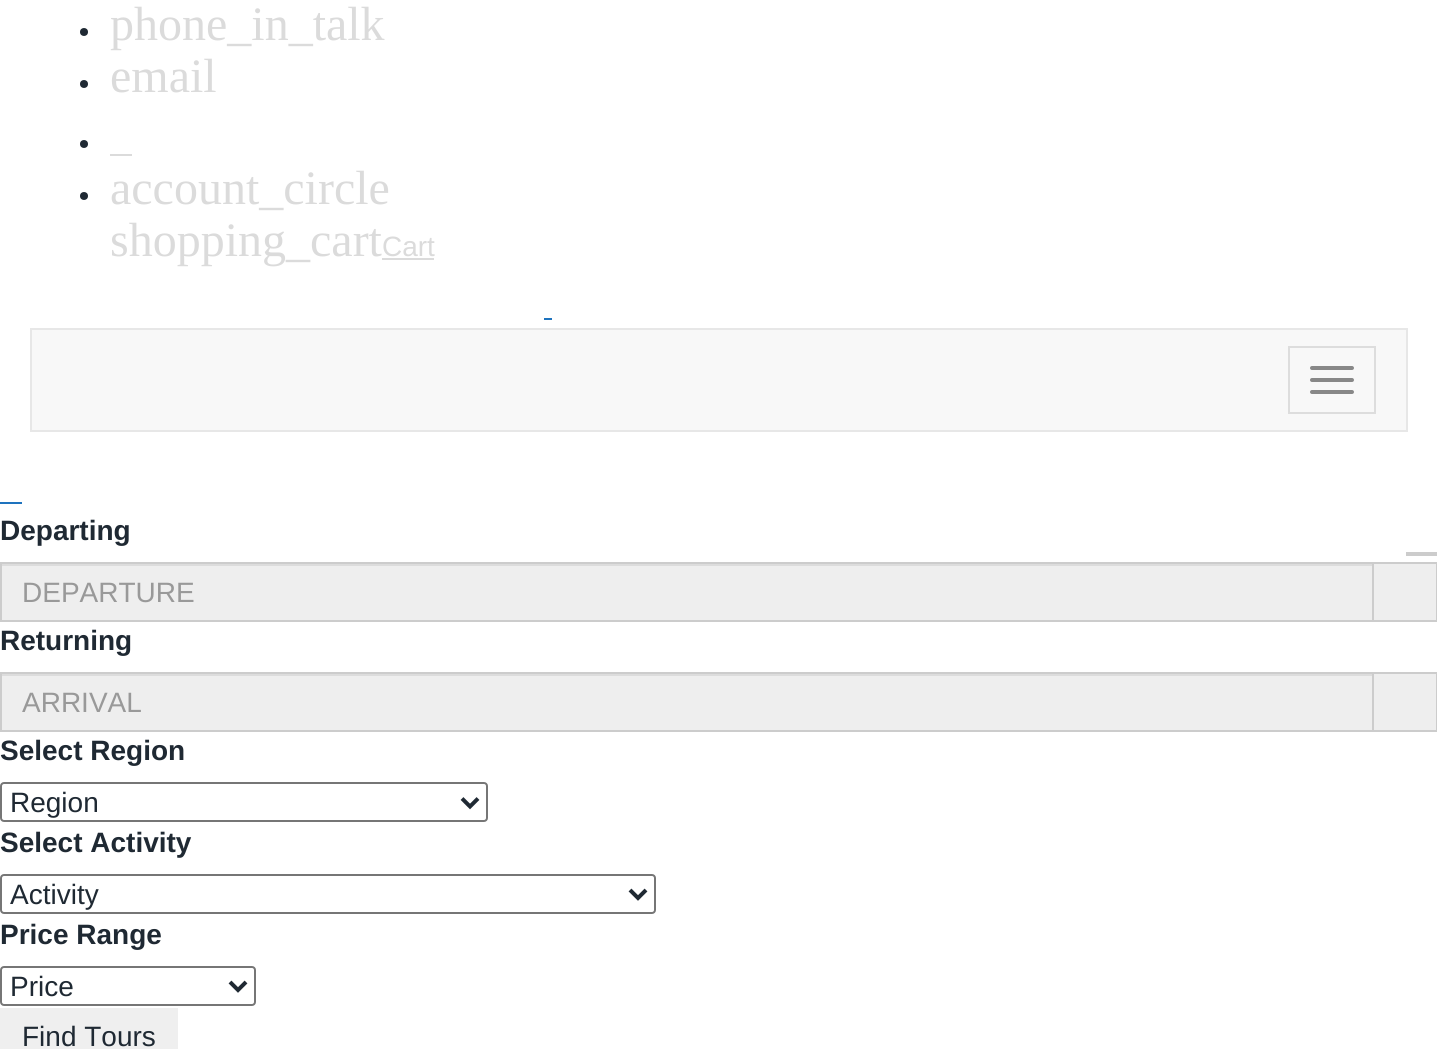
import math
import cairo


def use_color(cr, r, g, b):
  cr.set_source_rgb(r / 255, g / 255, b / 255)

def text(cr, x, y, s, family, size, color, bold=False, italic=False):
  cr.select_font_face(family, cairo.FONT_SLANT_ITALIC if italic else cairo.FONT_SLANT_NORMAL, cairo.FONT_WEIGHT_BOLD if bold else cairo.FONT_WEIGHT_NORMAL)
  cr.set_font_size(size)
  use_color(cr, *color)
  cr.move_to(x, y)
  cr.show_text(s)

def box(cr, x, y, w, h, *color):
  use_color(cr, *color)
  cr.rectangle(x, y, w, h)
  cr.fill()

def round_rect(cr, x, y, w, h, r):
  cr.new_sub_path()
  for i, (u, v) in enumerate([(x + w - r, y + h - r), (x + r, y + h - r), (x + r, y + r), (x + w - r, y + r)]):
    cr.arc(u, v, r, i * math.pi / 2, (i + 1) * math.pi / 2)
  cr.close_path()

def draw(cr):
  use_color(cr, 255, 255, 255)
  cr.paint()
  use_color(cr, 31, 41, 51)
  cr.arc(84, 32, 4, 0, 2 * math.pi)
  cr.fill()
  cr.arc(84, 84, 4, 0, 2 * math.pi)
  cr.fill()
  cr.arc(84, 144, 4, 0, 2 * math.pi)
  cr.fill()
  box(cr, 110, 154, 22, 2, 219, 219, 219)
  use_color(cr, 31, 41, 51)
  cr.arc(84, 196, 4, 0, 2 * math.pi)
  cr.fill()
  box(cr, 382, 258, 52, 2, 219, 219, 219)
  box(cr, 544, 318, 8, 2, 30, 115, 190)
  use_color(cr, 248, 248, 248)
  cr.rectangle(31, 329, 1376, 102)
  cr.fill_preserve()
  use_color(cr, 231, 231, 231)
  cr.stroke()
  cr.rectangle(1289, 347, 86, 66)
  use_color(cr, 221, 221, 221)
  cr.stroke()
  use_color(cr, 136, 136, 136)
  round_rect(cr, 1310, 366, 44, 4, 2)
  cr.fill()
  round_rect(cr, 1310, 378, 44, 4, 2)
  cr.fill()
  round_rect(cr, 1310, 390, 44, 4, 2)
  cr.fill()
  box(cr, 0, 502, 22, 2, 30, 115, 190)
  box(cr, 2, 566, 1370, 54, 238, 238, 238)
  box(cr, 2, 564, 1370, 2, 220, 220, 220)
  cr.rectangle(1, 563, 1372, 58)
  use_color(cr, 204, 204, 204)
  cr.stroke()
  box(cr, 1374, 564, 62, 56, 238, 238, 238)
  box(cr, 1374, 562, 63, 2, 204, 204, 204)
  box(cr, 1436, 562, 1, 60, 204, 204, 204)
  box(cr, 1374, 620, 63, 2, 204, 204, 204)
  box(cr, 2, 676, 1370, 54, 238, 238, 238)
  box(cr, 2, 674, 1370, 2, 220, 220, 220)
  cr.rectangle(1, 673, 1372, 58)
  use_color(cr, 204, 204, 204)
  cr.stroke()
  box(cr, 1374, 674, 62, 56, 238, 238, 238)
  box(cr, 1374, 672, 63, 2, 204, 204, 204)
  box(cr, 1436, 672, 1, 60, 204, 204, 204)
  box(cr, 1374, 730, 63, 2, 204, 204, 204)
  round_rect(cr, 1, 783, 486, 38, 3)
  use_color(cr, 118, 118, 118)
  cr.stroke()
  cr.new_path()
  cr.move_to(462, 798.5)
  cr.line_to(470, 806.5)
  cr.line_to(478, 798.5)
  use_color(cr, 31, 41, 51)
  cr.set_line_width(4)
  cr.stroke()
  round_rect(cr, 1, 875, 654, 38, 3)
  use_color(cr, 118, 118, 118)
  cr.set_line_width(2)
  cr.stroke()
  cr.new_path()
  cr.move_to(630, 890)
  cr.line_to(638, 898)
  cr.line_to(646, 890)
  use_color(cr, 31, 41, 51)
  cr.set_line_width(4)
  cr.stroke()
  round_rect(cr, 1, 967, 254, 38, 3)
  use_color(cr, 118, 118, 118)
  cr.set_line_width(2)
  cr.stroke()
  cr.new_path()
  cr.move_to(230, 982)
  cr.line_to(238, 990)
  cr.line_to(246, 982)
  use_color(cr, 31, 41, 51)
  cr.set_line_width(4)
  cr.stroke()
  box(cr, 0, 1008, 178, 41, 239, 239, 239)
  box(cr, 1406, 552, 31, 4, 204, 204, 204)
  text(cr, 110, 40, "phone_in_talk", "Liberation Serif", 48, (219, 219, 219))
  text(cr, 110, 92, "email", "Liberation Serif", 48, (219, 219, 219))
  text(cr, 110, 204, "account_circle", "Liberation Serif", 48, (219, 219, 219))
  text(cr, 110, 256, "shopping_cart", "Liberation Serif", 48, (219, 219, 219))
  text(cr, 382, 256, "Cart", "Liberation Sans", 28, (219, 219, 219))
  text(cr, 0, 540, "Departing", "Liberation Sans", 28, (31, 41, 51), bold=True)
  text(cr, 22, 602, "DEPARTURE", "Liberation Sans", 28, (153, 153, 153))
  text(cr, 0, 650, "Returning", "Liberation Sans", 28, (31, 41, 51), bold=True)
  text(cr, 22, 712, "ARRIVAL", "Liberation Sans", 28, (153, 153, 153))
  text(cr, 0, 760, "Select Region", "Liberation Sans", 28, (31, 41, 51), bold=True)
  text(cr, 10, 812, "Region", "Liberation Sans", 28, (31, 41, 51))
  text(cr, 0, 852, "Select Activity", "Liberation Sans", 28, (31, 41, 51), bold=True)
  text(cr, 10, 904, "Activity", "Liberation Sans", 28, (31, 41, 51))
  text(cr, 0, 944, "Price Range", "Liberation Sans", 28, (31, 41, 51), bold=True)
  text(cr, 10, 996, "Price", "Liberation Sans", 28, (31, 41, 51))
  text(cr, 22, 1046, "Find Tours", "Liberation Sans", 28, (31, 41, 51))


surface = cairo.ImageSurface(cairo.FORMAT_RGB24, 1437, 1049)
cr = cairo.Context(surface)
options = cairo.FontOptions()
options.set_hint_metrics(cairo.HINT_METRICS_OFF)
options.set_hint_style(cairo.HINT_STYLE_NONE)
cr.set_font_options(options)
cr.set_miter_limit(4)
draw(cr)
surface.write_to_png("out.png")
